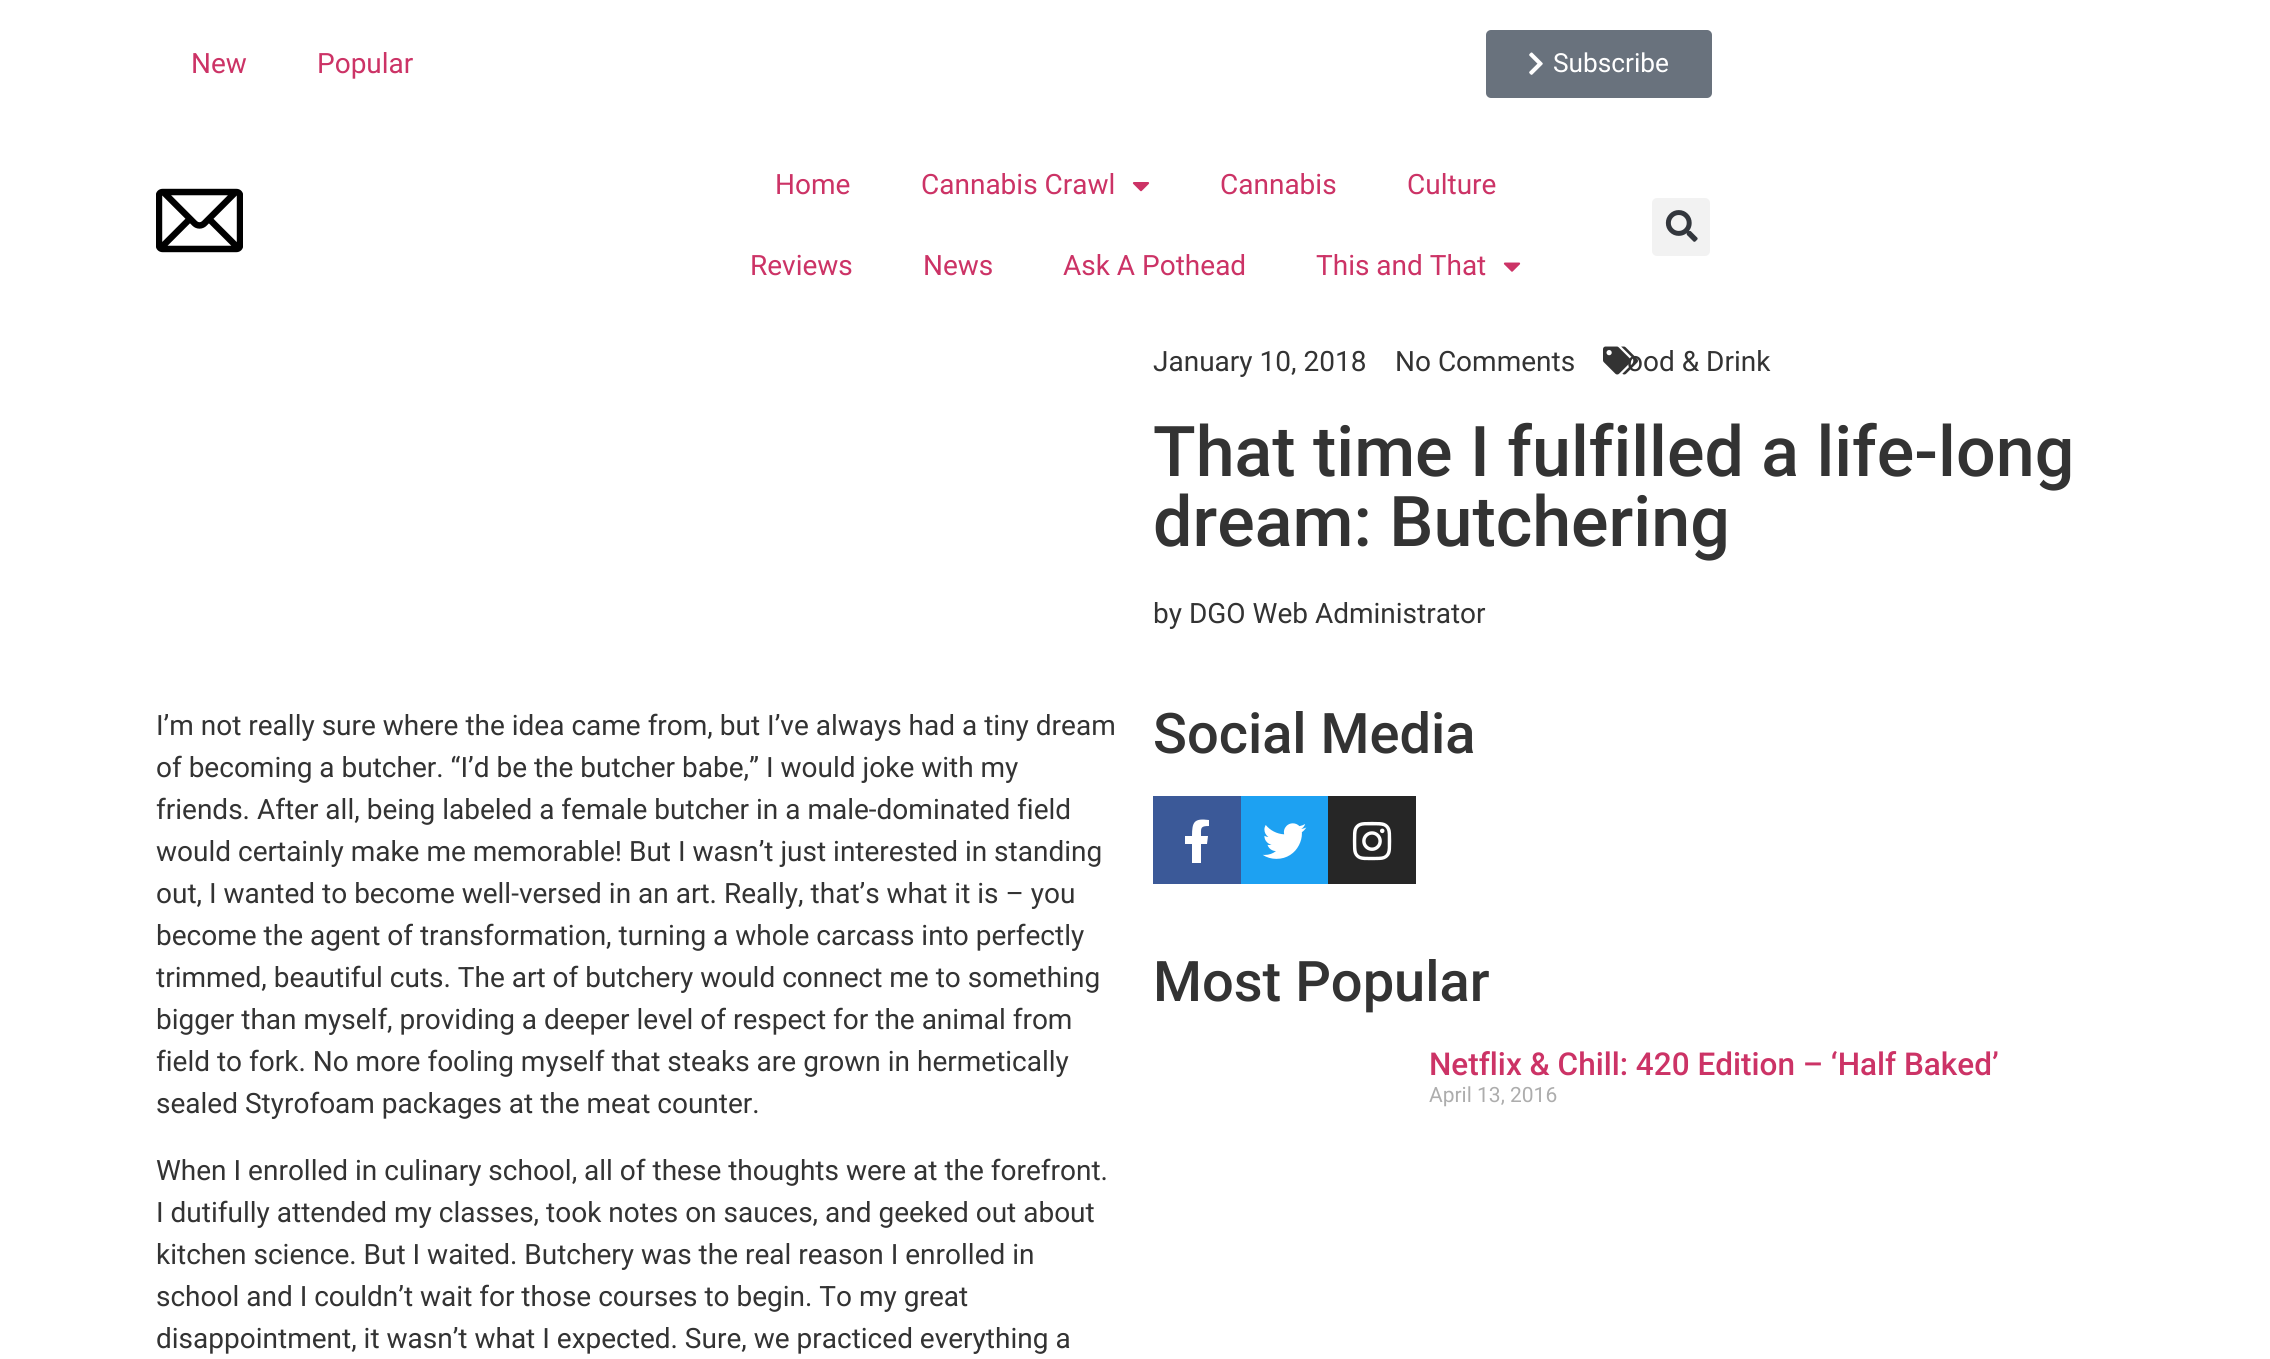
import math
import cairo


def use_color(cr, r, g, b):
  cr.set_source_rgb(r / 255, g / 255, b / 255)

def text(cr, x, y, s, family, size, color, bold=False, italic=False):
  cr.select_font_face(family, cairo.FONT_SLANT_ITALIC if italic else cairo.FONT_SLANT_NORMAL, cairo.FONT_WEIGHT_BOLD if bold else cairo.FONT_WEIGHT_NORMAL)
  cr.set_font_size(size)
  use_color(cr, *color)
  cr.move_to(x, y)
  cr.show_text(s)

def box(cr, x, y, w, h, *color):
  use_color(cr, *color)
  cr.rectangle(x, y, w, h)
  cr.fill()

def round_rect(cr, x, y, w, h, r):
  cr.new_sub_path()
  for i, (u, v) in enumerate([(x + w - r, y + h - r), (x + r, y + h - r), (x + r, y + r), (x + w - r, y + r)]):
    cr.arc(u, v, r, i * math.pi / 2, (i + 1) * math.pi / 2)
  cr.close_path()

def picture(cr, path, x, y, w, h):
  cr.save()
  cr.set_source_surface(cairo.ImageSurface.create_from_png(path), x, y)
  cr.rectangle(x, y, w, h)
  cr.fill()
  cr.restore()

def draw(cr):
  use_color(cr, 255, 255, 255)
  cr.paint()
  use_color(cr, 105, 114, 125)
  round_rect(cr, 1486, 30, 226, 68, 5)
  cr.fill()
  picture(cr, "img_01.png", 1529, 52, 14, 23)
  picture(cr, "img_02.png", 156, 188, 87, 65)
  picture(cr, "img_03.png", 1132, 182, 18, 10)
  picture(cr, "img_04.png", 1503, 262, 18, 10)
  use_color(cr, 242, 242, 242)
  round_rect(cr, 1652, 198, 58, 58, 5)
  cr.fill()
  picture(cr, "img_05.png", 1665, 210, 33, 32)
  box(cr, 1153, 796, 88, 88, 59, 89, 152)
  use_color(cr, 255, 255, 255)
  cr.new_path()
  cr.move_to(1207, 844)
  cr.line_to(1201, 844)
  cr.line_to(1201, 863)
  cr.line_to(1192, 863)
  cr.line_to(1192, 844)
  cr.line_to(1185, 844)
  cr.line_to(1185, 836)
  cr.line_to(1192, 836)
  cr.curve_to(1192, 822, 1194, 818, 1209, 820)
  cr.line_to(1209, 826)
  cr.curve_to(1200, 826, 1201, 828, 1201, 836)
  cr.line_to(1208, 836)
  cr.close_path()
  cr.fill()
  box(cr, 1241, 796, 87, 88, 29, 161, 242)
  picture(cr, "img_07.png", 1262, 823, 45, 36)
  box(cr, 1328, 796, 88, 88, 38, 38, 38)
  picture(cr, "img_08.png", 1352, 821, 40, 40)
  text(cr, 191, 73, "New", "Roboto", 28, (204, 51, 102))
  text(cr, 317, 73, "Popular", "Roboto", 28, (204, 51, 102))
  text(cr, 1553, 72, "Subscribe", "Roboto", 26.25, (255, 255, 255))
  text(cr, 775, 194, "Home", "Roboto", 28, (204, 51, 102))
  text(cr, 921, 194, "Cannabis Crawl", "Roboto", 28, (204, 51, 102))
  text(cr, 1220, 194, "Cannabis", "Roboto", 28, (204, 51, 102))
  text(cr, 1407, 194, "Culture", "Roboto", 28, (204, 51, 102))
  text(cr, 750, 275, "Reviews", "Roboto", 28, (204, 51, 102))
  text(cr, 923, 275, "News", "Roboto", 28, (204, 51, 102))
  text(cr, 1063, 275, "Ask A Pothead", "Roboto", 28, (204, 51, 102))
  text(cr, 1316, 275, "This and That", "Roboto", 28, (204, 51, 102))
  text(cr, 1153, 371, "January 10, 2018", "Roboto", 28, (51, 51, 51))
  text(cr, 1395, 371, "No Comments", "Roboto", 28, (51, 51, 51))
  text(cr, 1627, 371, "ood & Drink", "Roboto", 28, (51, 51, 51))
  picture(cr, "img_06.png", 1603, 346, 35, 29)
  text(cr, 1153, 476, "That time I fulfilled a life-long", "Roboto Medium", 70, (51, 51, 51))
  text(cr, 1153, 546, "dream: Butchering", "Roboto Medium", 70, (51, 51, 51))
  text(cr, 1153, 623, "by DGO Web Administrator", "Roboto", 28, (51, 51, 51))
  text(cr, 156, 735, "I’m not really sure where the idea came from, but I’ve always had a tiny dream", "Roboto", 28, (51, 51, 51))
  text(cr, 156, 777, "of becoming a butcher. “I’d be the butcher babe,” I would joke with my", "Roboto", 28, (51, 51, 51))
  text(cr, 156, 819, "friends. After all, being labeled a female butcher in a male-dominated field", "Roboto", 28, (51, 51, 51))
  text(cr, 156, 861, "would certainly make me memorable! But I wasn’t just interested in standing", "Roboto", 28, (51, 51, 51))
  text(cr, 156, 903, "out, I wanted to become well-versed in an art. Really, that’s what it is – you", "Roboto", 28, (51, 51, 51))
  text(cr, 156, 945, "become the agent of transformation, turning a whole carcass into perfectly", "Roboto", 28, (51, 51, 51))
  text(cr, 156, 987, "trimmed, beautiful cuts. The art of butchery would connect me to something", "Roboto", 28, (51, 51, 51))
  text(cr, 156, 1029, "bigger than myself, providing a deeper level of respect for the animal from", "Roboto", 28, (51, 51, 51))
  text(cr, 156, 1071, "field to fork. No more fooling myself that steaks are grown in hermetically", "Roboto", 28, (51, 51, 51))
  text(cr, 156, 1113, "sealed Styrofoam packages at the meat counter.", "Roboto", 28, (51, 51, 51))
  text(cr, 156, 1180, "When I enrolled in culinary school, all of these thoughts were at the forefront.", "Roboto", 28, (51, 51, 51))
  text(cr, 156, 1222, "I dutifully attended my classes, took notes on sauces, and geeked out about", "Roboto", 28, (51, 51, 51))
  text(cr, 156, 1264, "kitchen science. But I waited. Butchery was the real reason I enrolled in", "Roboto", 28, (51, 51, 51))
  text(cr, 156, 1306, "school and I couldn’t wait for those courses to begin. To my great", "Roboto", 28, (51, 51, 51))
  text(cr, 156, 1348, "disappointment, it wasn’t what I expected. Sure, we practiced everything a", "Roboto", 28, (51, 51, 51))
  text(cr, 1153, 753, "Social Media", "Roboto Medium", 56, (51, 51, 51))
  text(cr, 1153, 1001, "Most Popular", "Roboto Medium", 56, (51, 51, 51))
  text(cr, 1429, 1075, "Netflix & Chill: 420 Edition – ‘Half Baked’", "Roboto Medium", 31.5, (204, 51, 102))
  text(cr, 1429, 1102, "April 13, 2016", "Roboto", 21, (173, 173, 173))


surface = cairo.ImageSurface(cairo.FORMAT_RGB24, 2270, 1359)
cr = cairo.Context(surface)
options = cairo.FontOptions()
options.set_hint_metrics(cairo.HINT_METRICS_OFF)
options.set_hint_style(cairo.HINT_STYLE_NONE)
cr.set_font_options(options)
cr.set_miter_limit(4)
draw(cr)
surface.write_to_png("out.png")
